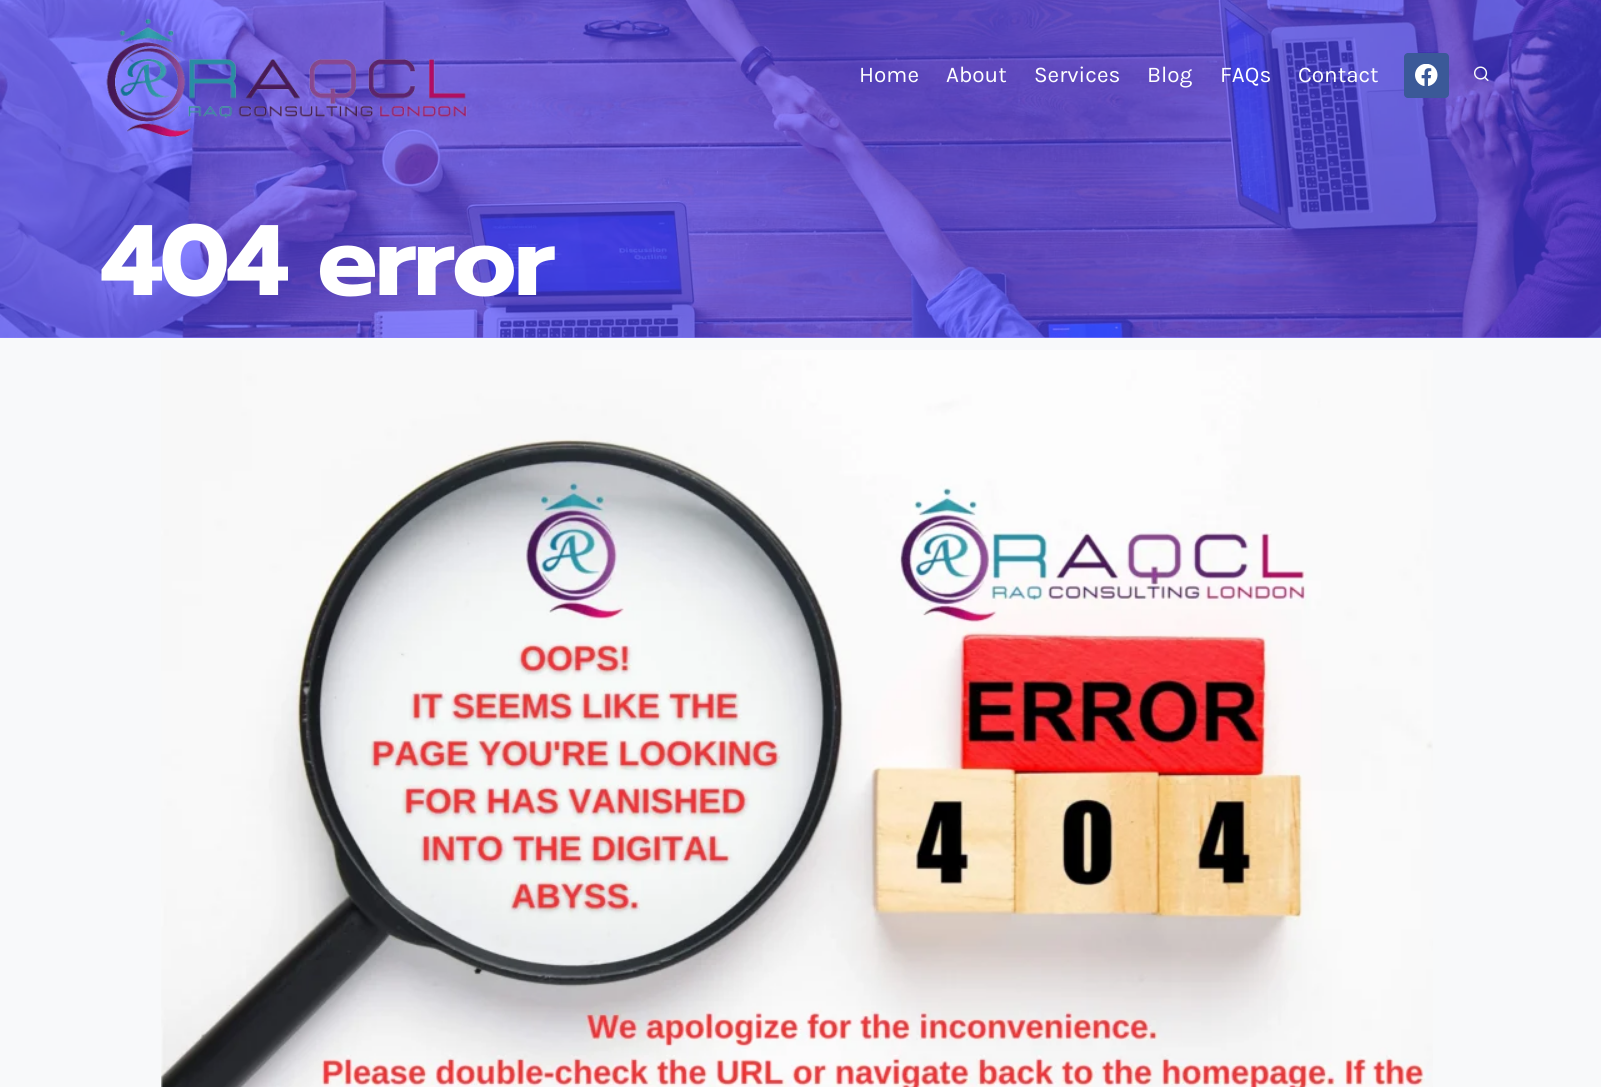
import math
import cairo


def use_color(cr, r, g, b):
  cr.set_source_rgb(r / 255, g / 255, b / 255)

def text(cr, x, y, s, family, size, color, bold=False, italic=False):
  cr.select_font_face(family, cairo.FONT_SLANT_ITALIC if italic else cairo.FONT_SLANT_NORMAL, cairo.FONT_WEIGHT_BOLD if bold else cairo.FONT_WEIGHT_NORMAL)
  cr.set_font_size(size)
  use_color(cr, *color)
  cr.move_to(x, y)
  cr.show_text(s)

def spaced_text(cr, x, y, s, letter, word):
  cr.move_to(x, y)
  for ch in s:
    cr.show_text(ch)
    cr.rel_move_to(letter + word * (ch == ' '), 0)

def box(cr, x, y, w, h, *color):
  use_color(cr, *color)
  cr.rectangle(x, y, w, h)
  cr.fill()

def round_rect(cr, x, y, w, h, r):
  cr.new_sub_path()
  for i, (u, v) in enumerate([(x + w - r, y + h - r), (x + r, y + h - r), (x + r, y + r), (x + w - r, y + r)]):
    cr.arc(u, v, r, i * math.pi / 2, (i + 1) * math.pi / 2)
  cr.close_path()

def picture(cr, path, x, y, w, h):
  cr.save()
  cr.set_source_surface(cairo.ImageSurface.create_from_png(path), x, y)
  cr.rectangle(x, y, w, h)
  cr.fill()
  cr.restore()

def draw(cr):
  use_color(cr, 248, 249, 250)
  cr.paint()
  box(cr, 0, 337, 1601, 1, 137, 129, 253)
  picture(cr, "img_04.png", 0, 0, 1601, 338)
  picture(cr, "img_01.png", 106, 18, 361, 119)
  use_color(cr, 59, 89, 152)
  round_rect(cr, 1404, 53, 45, 45, 4)
  cr.fill()
  picture(cr, "img_02.png", 1415, 64, 23, 22)
  picture(cr, "img_03.png", 1474, 66, 15, 15)
  picture(cr, "img_05.png", 161, 350, 1272, 737)
  text(cr, 859, 82, "Home", "Karla", 22.5, (255, 255, 255))
  text(cr, 946, 82, "About", "Karla", 22.5, (255, 255, 255))
  text(cr, 1034, 82, "Services", "Karla", 22.5, (255, 255, 255))
  text(cr, 1147, 82, "Blog", "Karla", 22.5, (255, 255, 255))
  text(cr, 1220, 82, "FAQs", "Karla", 22.5, (255, 255, 255))
  text(cr, 1298, 82, "Contact", "Karla", 22.5, (255, 255, 255))
  cr.select_font_face("Prompt", cairo.FONT_SLANT_NORMAL, cairo.FONT_WEIGHT_BOLD)
  cr.set_font_size(100)
  spaced_text(cr, 101, 295, "404 error", -2.5, 0)


surface = cairo.ImageSurface(cairo.FORMAT_RGB24, 1601, 1087)
cr = cairo.Context(surface)
options = cairo.FontOptions()
options.set_hint_metrics(cairo.HINT_METRICS_OFF)
options.set_hint_style(cairo.HINT_STYLE_NONE)
cr.set_font_options(options)
cr.set_miter_limit(4)
draw(cr)
surface.write_to_png("out.png")
